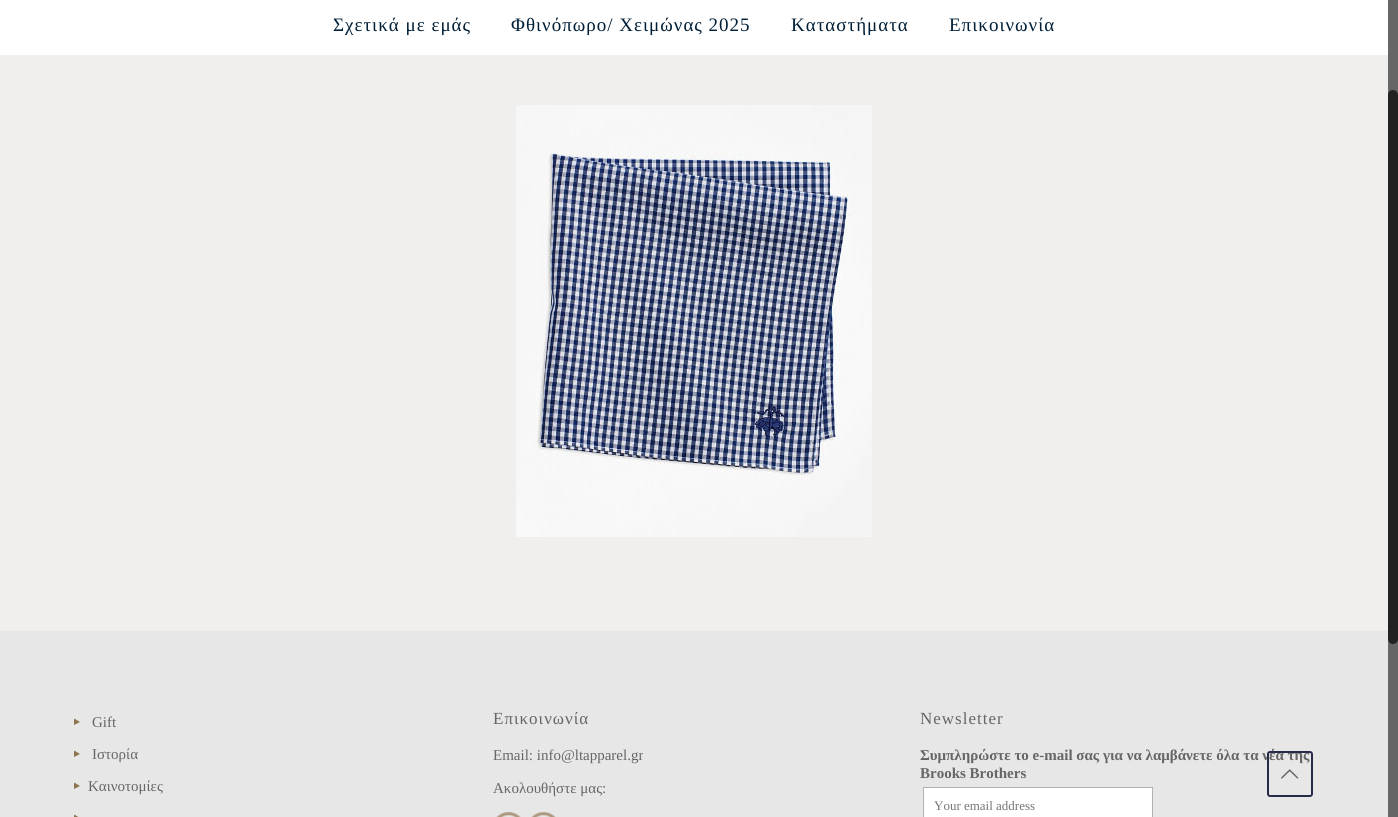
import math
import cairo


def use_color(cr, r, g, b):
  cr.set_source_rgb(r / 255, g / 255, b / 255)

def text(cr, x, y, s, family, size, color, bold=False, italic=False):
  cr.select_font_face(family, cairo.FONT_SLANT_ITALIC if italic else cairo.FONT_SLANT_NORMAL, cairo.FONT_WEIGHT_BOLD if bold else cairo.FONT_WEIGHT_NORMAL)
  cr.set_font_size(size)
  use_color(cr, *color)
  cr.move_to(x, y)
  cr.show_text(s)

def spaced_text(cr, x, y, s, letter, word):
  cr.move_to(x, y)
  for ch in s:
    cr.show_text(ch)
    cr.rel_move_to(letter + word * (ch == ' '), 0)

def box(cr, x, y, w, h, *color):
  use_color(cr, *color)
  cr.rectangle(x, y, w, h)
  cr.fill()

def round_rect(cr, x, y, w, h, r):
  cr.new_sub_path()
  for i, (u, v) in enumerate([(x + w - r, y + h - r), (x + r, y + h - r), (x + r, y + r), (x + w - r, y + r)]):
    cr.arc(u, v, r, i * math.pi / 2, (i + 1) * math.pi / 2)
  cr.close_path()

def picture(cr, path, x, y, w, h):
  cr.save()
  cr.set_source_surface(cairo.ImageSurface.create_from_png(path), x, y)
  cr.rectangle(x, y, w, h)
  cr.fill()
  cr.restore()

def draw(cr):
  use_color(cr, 240, 239, 237)
  cr.paint()
  box(cr, 0, 0, 1388, 55, 255, 255, 255)
  picture(cr, "img_01.png", 516, 105, 356, 432)
  box(cr, 0, 631, 1388, 186, 231, 231, 231)
  use_color(cr, 141, 117, 79)
  cr.new_path()
  cr.move_to(74, 718.5)
  cr.line_to(80, 722)
  cr.line_to(74, 725)
  cr.close_path()
  cr.fill()
  cr.new_path()
  cr.move_to(74, 750.5)
  cr.line_to(80, 754)
  cr.line_to(74, 757)
  cr.close_path()
  cr.fill()
  cr.new_path()
  cr.move_to(74, 782.5)
  cr.line_to(80, 786)
  cr.line_to(74, 789)
  cr.close_path()
  cr.fill()
  cr.new_path()
  cr.move_to(74, 814.5)
  cr.line_to(80, 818)
  cr.line_to(74, 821)
  cr.close_path()
  cr.fill()
  picture(cr, "img_02.png", 496, 812, 25, 5)
  picture(cr, "img_03.png", 531, 812, 25, 5)
  use_color(cr, 255, 255, 255)
  cr.rectangle(923.5, 787.5, 229, 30)
  cr.fill_preserve()
  use_color(cr, 179, 176, 180)
  cr.set_line_width(1)
  cr.stroke()
  box(cr, 1388, 0, 10, 817, 102, 102, 102)
  use_color(cr, 34, 34, 34)
  round_rect(cr, 1388, 90, 10, 554, 5)
  cr.fill()
  cr.select_font_face("Liberation Serif")
  cr.set_font_size(19)
  use_color(cr, 0, 31, 55)
  spaced_text(cr, 333, 31, "Σχετικά με εμάς", 1, 0)
  spaced_text(cr, 511, 31, "Φθινόπωρο/ Χειμώνας 2025", 1, 0)
  spaced_text(cr, 791, 31, "Καταστήματα", 1, 0)
  spaced_text(cr, 949, 31, "Επικοινωνία", 1, 0)
  text(cr, 92, 727, "Gift", "Liberation Serif", 15, (102, 102, 102))
  text(cr, 92, 759, "Ιστορία", "Liberation Serif", 15, (102, 102, 102))
  text(cr, 88, 791, "Καινοτομίες", "Liberation Serif", 15, (102, 102, 102))
  cr.set_font_size(17)
  spaced_text(cr, 493, 724, "Επικοινωνία", 1, 0)
  text(cr, 493, 760, "Email: info@ltapparel.gr", "Liberation Serif", 15, (102, 102, 102))
  text(cr, 493, 793, "Ακολουθήστε μας:", "Liberation Serif", 15, (102, 102, 102))
  cr.set_font_size(17)
  spaced_text(cr, 920, 724, "Newsletter", 1, 0)
  text(cr, 920, 760, "Συμπληρώστε το e-mail σας για να λαμβάνετε όλα τα νέα της", "Liberation Serif", 15, (102, 102, 102), bold=True)
  text(cr, 920, 778, "Brooks Brothers", "Liberation Serif", 15, (102, 102, 102), bold=True)
  text(cr, 934, 810, "Your email address", "Liberation Serif", 13, (117, 117, 117))
  round_rect(cr, 1268, 752, 44, 44, 2)
  use_color(cr, 39, 43, 71)
  cr.set_line_width(2)
  cr.stroke()
  picture(cr, "img_04.png", 1281, 769, 18, 10)


surface = cairo.ImageSurface(cairo.FORMAT_RGB24, 1398, 817)
cr = cairo.Context(surface)
options = cairo.FontOptions()
options.set_hint_metrics(cairo.HINT_METRICS_OFF)
options.set_hint_style(cairo.HINT_STYLE_NONE)
cr.set_font_options(options)
cr.set_miter_limit(4)
draw(cr)
surface.write_to_png("out.png")
